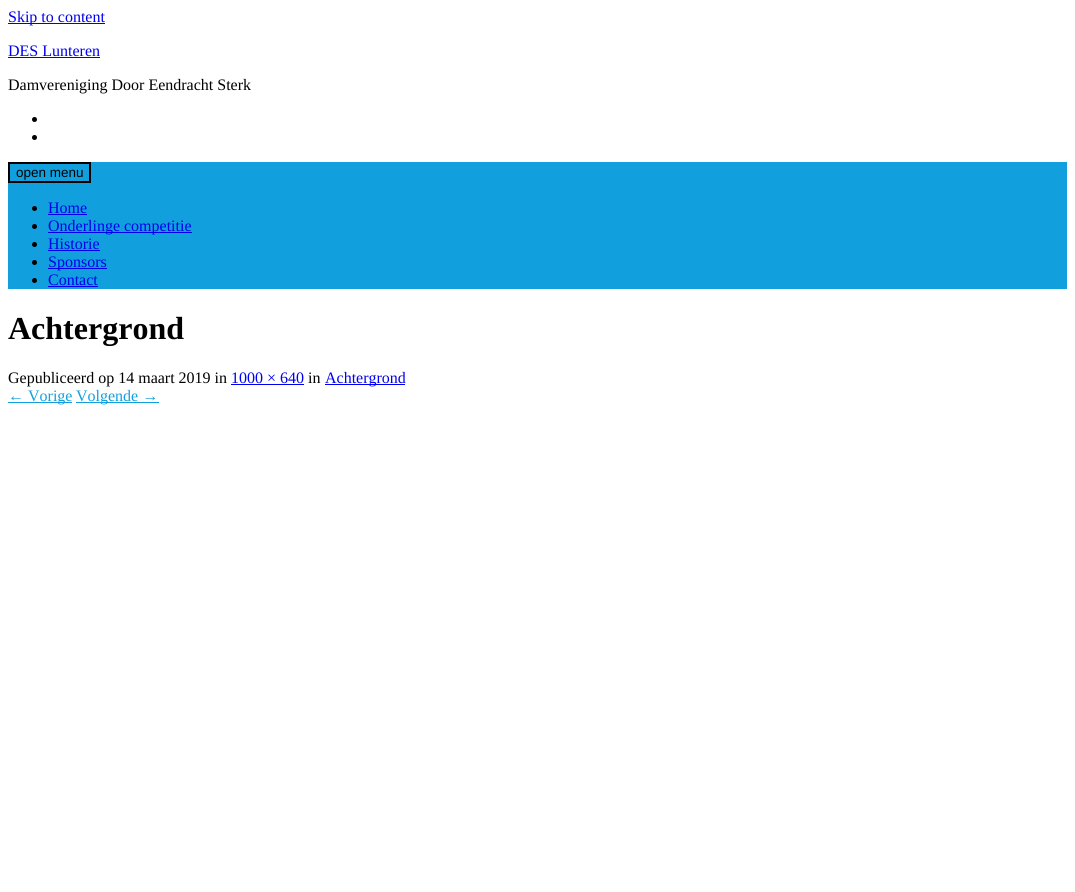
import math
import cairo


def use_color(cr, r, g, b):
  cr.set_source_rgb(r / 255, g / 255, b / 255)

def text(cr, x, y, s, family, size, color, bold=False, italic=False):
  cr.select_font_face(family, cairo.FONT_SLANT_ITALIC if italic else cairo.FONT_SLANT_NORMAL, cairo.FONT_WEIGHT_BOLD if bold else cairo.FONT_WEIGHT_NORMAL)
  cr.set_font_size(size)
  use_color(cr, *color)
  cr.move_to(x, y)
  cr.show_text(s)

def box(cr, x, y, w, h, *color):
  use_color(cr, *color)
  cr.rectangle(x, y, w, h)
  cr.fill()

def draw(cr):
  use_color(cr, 255, 255, 255)
  cr.paint()
  box(cr, 8, 23, 97, 1, 0, 0, 238)
  box(cr, 8, 57, 92, 1, 0, 0, 238)
  use_color(cr, 0, 0, 0)
  cr.arc(34.5, 119.5, 2.5, 0, 2 * math.pi)
  cr.fill()
  cr.arc(34.5, 137.5, 2.5, 0, 2 * math.pi)
  cr.fill()
  box(cr, 8, 162, 1059, 127, 17, 160, 221)
  cr.rectangle(9, 163, 81, 19)
  use_color(cr, 0, 0, 0)
  cr.stroke()
  cr.arc(34.5, 208.5, 2.5, 0, 2 * math.pi)
  cr.fill()
  box(cr, 48, 214, 39, 1, 0, 0, 238)
  use_color(cr, 0, 0, 0)
  cr.arc(34.5, 226.5, 2.5, 0, 2 * math.pi)
  cr.fill()
  box(cr, 48, 232, 144, 1, 0, 0, 238)
  use_color(cr, 0, 0, 0)
  cr.arc(34.5, 244.5, 2.5, 0, 2 * math.pi)
  cr.fill()
  box(cr, 48, 250, 52, 1, 0, 0, 238)
  use_color(cr, 0, 0, 0)
  cr.arc(34.5, 262.5, 2.5, 0, 2 * math.pi)
  cr.fill()
  box(cr, 48, 268, 59, 1, 0, 0, 238)
  use_color(cr, 0, 0, 0)
  cr.arc(34.5, 280.5, 2.5, 0, 2 * math.pi)
  cr.fill()
  box(cr, 48, 286, 50, 1, 0, 0, 238)
  box(cr, 231, 384, 73, 1, 0, 0, 238)
  box(cr, 325, 384, 80, 1, 0, 0, 238)
  box(cr, 8, 402, 64, 1, 17, 160, 221)
  box(cr, 76, 402, 83, 1, 17, 160, 221)
  text(cr, 8, 22, "Skip to content", "Liberation Serif", 16, (0, 0, 238))
  text(cr, 8, 56, "DES Lunteren", "Liberation Serif", 16, (0, 0, 238))
  text(cr, 8, 90, "Damvereniging Door Eendracht Sterk", "Liberation Serif", 16, (0, 0, 0))
  text(cr, 16, 177, "open menu", "Liberation Sans", 13.5, (0, 0, 0))
  text(cr, 48, 213, "Home", "Liberation Serif", 16, (0, 0, 238))
  text(cr, 48, 231, "Onderlinge competitie", "Liberation Serif", 16, (0, 0, 238))
  text(cr, 48, 249, "Historie", "Liberation Serif", 16, (0, 0, 238))
  text(cr, 48, 267, "Sponsors", "Liberation Serif", 16, (0, 0, 238))
  text(cr, 48, 285, "Contact", "Liberation Serif", 16, (0, 0, 238))
  text(cr, 8, 339, "Achtergrond", "Liberation Serif", 32, (0, 0, 0), bold=True)
  text(cr, 8, 383, "Gepubliceerd op 14 maart 2019 in", "Liberation Serif", 16, (0, 0, 0))
  text(cr, 231, 383, "1000 × 640", "Liberation Serif", 16, (0, 0, 238))
  text(cr, 308, 383, "in", "Liberation Serif", 16, (0, 0, 0))
  text(cr, 325, 383, "Achtergrond", "Liberation Serif", 16, (0, 0, 238))
  text(cr, 8, 401, "← Vorige", "Liberation Serif", 16, (17, 160, 221))
  text(cr, 76, 401, "Volgende →", "Liberation Serif", 16, (17, 160, 221))


surface = cairo.ImageSurface(cairo.FORMAT_RGB24, 1075, 892)
cr = cairo.Context(surface)
options = cairo.FontOptions()
options.set_hint_metrics(cairo.HINT_METRICS_OFF)
options.set_hint_style(cairo.HINT_STYLE_NONE)
cr.set_font_options(options)
cr.set_miter_limit(4)
draw(cr)
surface.write_to_png("out.png")
